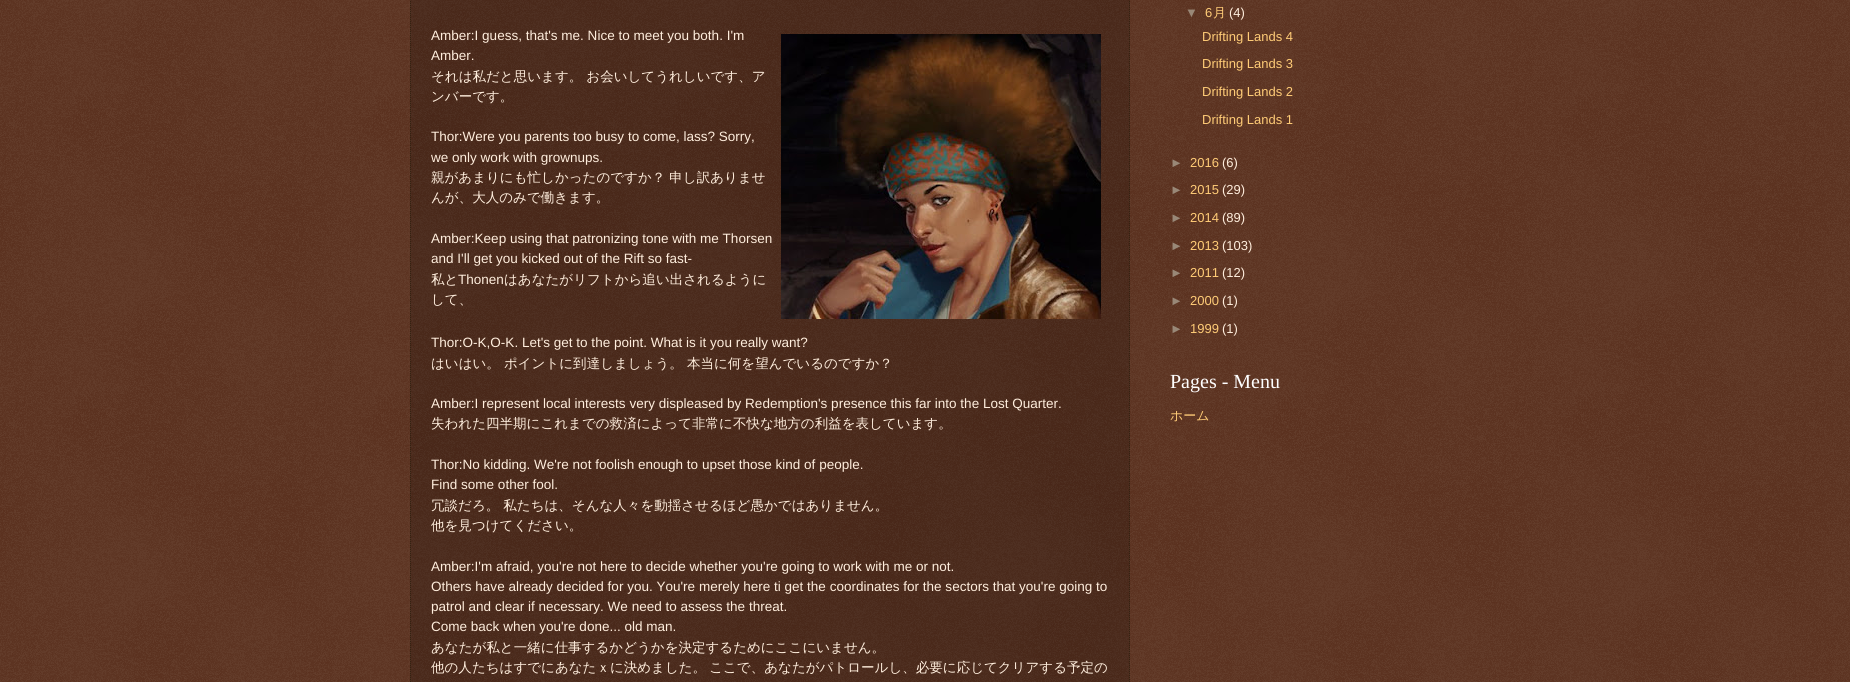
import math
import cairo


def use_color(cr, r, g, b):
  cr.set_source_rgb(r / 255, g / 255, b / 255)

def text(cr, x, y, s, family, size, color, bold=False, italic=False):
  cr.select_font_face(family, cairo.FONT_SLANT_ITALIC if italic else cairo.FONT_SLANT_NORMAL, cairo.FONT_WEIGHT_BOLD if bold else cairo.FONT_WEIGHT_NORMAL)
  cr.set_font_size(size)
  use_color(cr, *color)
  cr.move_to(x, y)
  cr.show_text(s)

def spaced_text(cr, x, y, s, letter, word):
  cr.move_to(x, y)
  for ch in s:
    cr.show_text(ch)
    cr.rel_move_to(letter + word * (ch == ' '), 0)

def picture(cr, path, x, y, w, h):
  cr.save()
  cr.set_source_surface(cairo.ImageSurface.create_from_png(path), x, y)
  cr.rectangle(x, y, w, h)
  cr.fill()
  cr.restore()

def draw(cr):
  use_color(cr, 68, 21, 0)
  cr.paint()
  picture(cr, "img_01.png", 0, 0, 1850, 682)
  cr.set_source_rgba(0, 0, 0, 0.2)
  cr.rectangle(410, 0, 720, 682)
  cr.fill()
  cr.new_path()
  cr.move_to(1129.5, -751)
  cr.line_to(1129.5, 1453)
  use_color(cr, 51, 34, 17)
  cr.set_line_width(1)
  cr.set_dash([1, 1])
  cr.stroke()
  cr.new_path()
  cr.move_to(410.5, -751)
  cr.line_to(410.5, 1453)
  cr.stroke()
  picture(cr, "img_02.png", 781, 34, 320, 285)
  text(cr, 431, 40, "Amber:I guess, that's me. Nice to meet you both. I'm", "Liberation Sans", 13.52, (255, 238, 221))
  text(cr, 431, 60, "Amber.", "Liberation Sans", 13.52, (255, 238, 221))
  text(cr, 431, 81, "それは私だと思います。 お会いしてうれしいです、ア", "WenQuanYi Zen Hei Medium", 13.52, (255, 238, 221))
  text(cr, 431, 101, "ンバーです。", "WenQuanYi Zen Hei Medium", 13.52, (255, 238, 221))
  text(cr, 431, 141, "Thor:Were you parents too busy to come, lass? Sorry,", "Liberation Sans", 13.52, (255, 238, 221))
  text(cr, 431, 162, "we only work with grownups.", "Liberation Sans", 13.52, (255, 238, 221))
  text(cr, 431, 182, "親があまりにも忙しかったのですか？ 申し訳ありませ", "WenQuanYi Zen Hei Medium", 13.52, (255, 238, 221))
  text(cr, 431, 202, "んが、大人のみで働きます。", "WenQuanYi Zen Hei Medium", 13.52, (255, 238, 221))
  text(cr, 431, 243, "Amber:Keep using that patronizing tone with me Thorsen", "Liberation Sans", 13.52, (255, 238, 221))
  text(cr, 431, 263, "and I'll get you kicked out of the Rift so fast-", "Liberation Sans", 13.52, (255, 238, 221))
  text(cr, 431, 284, "私と", "WenQuanYi Zen Hei Medium", 13.52, (255, 238, 221))
  text(cr, 458, 284, "Thonen", "Liberation Sans", 13.52, (255, 238, 221))
  text(cr, 504, 284, "はあなたがリフトから追い出されるように", "WenQuanYi Zen Hei Medium", 13.52, (255, 238, 221))
  text(cr, 431, 304, "して、", "WenQuanYi Zen Hei Medium", 13.52, (255, 238, 221))
  text(cr, 431, 347, "Thor:O-K,O-K. Let's get to the point. What is it you really want?", "Liberation Sans", 13.52, (255, 238, 221))
  text(cr, 431, 368, "はいはい。 ポイントに到達しましょう。 本当に何を望んでいるのですか？", "WenQuanYi Zen Hei Medium", 13.52, (255, 238, 221))
  text(cr, 431, 408, "Amber:I represent local interests very displeased by Redemption's presence this far into the Lost Quarter.", "Liberation Sans", 13.52, (255, 238, 221))
  text(cr, 431, 428, "失われた四半期にこれまでの救済によって非常に不快な地方の利益を表しています。", "WenQuanYi Zen Hei Medium", 13.52, (255, 238, 221))
  text(cr, 431, 469, "Thor:No kidding. We're not foolish enough to upset those kind of people.", "Liberation Sans", 13.52, (255, 238, 221))
  text(cr, 431, 489, "Find some other fool.", "Liberation Sans", 13.52, (255, 238, 221))
  text(cr, 431, 510, "冗談だろ。 私たちは、そんな人々を動揺させるほど愚かではありません。", "WenQuanYi Zen Hei Medium", 13.52, (255, 238, 221))
  text(cr, 431, 530, "他を見つけてください。", "WenQuanYi Zen Hei Medium", 13.52, (255, 238, 221))
  text(cr, 431, 571, "Amber:I'm afraid, you're not here to decide whether you're going to work with me or not.", "Liberation Sans", 13.52, (255, 238, 221))
  text(cr, 431, 591, "Others have already decided for you. You're merely here ti get the coordinates for the sectors that you're going to", "Liberation Sans", 13.52, (255, 238, 221))
  text(cr, 431, 611, "patrol and clear if necessary. We need to assess the threat.", "Liberation Sans", 13.52, (255, 238, 221))
  text(cr, 431, 631, "Come back when you're done... old man.", "Liberation Sans", 13.52, (255, 238, 221))
  text(cr, 431, 652, "あなたが私と一緒に仕事するかどうかを決定するためにここにいません。", "WenQuanYi Zen Hei Medium", 13.52, (255, 238, 221))
  spaced_text(cr, 431, 672, "他の人たちはすでにあなたｘに決めました。 ここで、あなたがパトロールし、必要に応じてクリアする予定の", 0, -1)
  text(cr, 1185, 17, "▼", "Liberation Sans", 13, (153, 136, 119))
  text(cr, 1205, 17, "6", "Liberation Sans", 13, (255, 204, 119))
  text(cr, 1213, 17, "月", "WenQuanYi Zen Hei Medium", 13, (255, 204, 119))
  text(cr, 1229, 17, "(4)", "Liberation Sans", 13, (255, 238, 221))
  text(cr, 1202, 41, "Drifting Lands 4", "Liberation Sans", 13, (255, 204, 119))
  text(cr, 1202, 68, "Drifting Lands 3", "Liberation Sans", 13, (255, 204, 119))
  text(cr, 1202, 96, "Drifting Lands 2", "Liberation Sans", 13, (255, 204, 119))
  text(cr, 1202, 124, "Drifting Lands 1", "Liberation Sans", 13, (255, 204, 119))
  text(cr, 1170, 167, "►", "Liberation Sans", 13, (153, 136, 119))
  text(cr, 1190, 167, "2016", "Liberation Sans", 13, (255, 204, 119))
  text(cr, 1222, 167, "(6)", "Liberation Sans", 13, (255, 238, 221))
  text(cr, 1170, 194, "►", "Liberation Sans", 13, (153, 136, 119))
  text(cr, 1190, 194, "2015", "Liberation Sans", 13, (255, 204, 119))
  text(cr, 1222, 194, "(29)", "Liberation Sans", 13, (255, 238, 221))
  text(cr, 1170, 222, "►", "Liberation Sans", 13, (153, 136, 119))
  text(cr, 1190, 222, "2014", "Liberation Sans", 13, (255, 204, 119))
  text(cr, 1222, 222, "(89)", "Liberation Sans", 13, (255, 238, 221))
  text(cr, 1170, 250, "►", "Liberation Sans", 13, (153, 136, 119))
  text(cr, 1190, 250, "2013", "Liberation Sans", 13, (255, 204, 119))
  text(cr, 1222, 250, "(103)", "Liberation Sans", 13, (255, 238, 221))
  text(cr, 1170, 277, "►", "Liberation Sans", 13, (153, 136, 119))
  text(cr, 1190, 277, "2011", "Liberation Sans", 13, (255, 204, 119))
  text(cr, 1222, 277, "(12)", "Liberation Sans", 13, (255, 238, 221))
  text(cr, 1170, 305, "►", "Liberation Sans", 13, (153, 136, 119))
  text(cr, 1190, 305, "2000", "Liberation Sans", 13, (255, 204, 119))
  text(cr, 1222, 305, "(1)", "Liberation Sans", 13, (255, 238, 221))
  text(cr, 1170, 333, "►", "Liberation Sans", 13, (153, 136, 119))
  text(cr, 1190, 333, "1999", "Liberation Sans", 13, (255, 204, 119))
  text(cr, 1222, 333, "(1)", "Liberation Sans", 13, (255, 238, 221))
  text(cr, 1170, 388, "Pages - Menu", "Liberation Serif", 20, (255, 255, 255))
  text(cr, 1170, 420, "ホーム", "WenQuanYi Zen Hei Medium", 13, (255, 204, 119))


surface = cairo.ImageSurface(cairo.FORMAT_RGB24, 1850, 682)
cr = cairo.Context(surface)
options = cairo.FontOptions()
options.set_hint_metrics(cairo.HINT_METRICS_OFF)
options.set_hint_style(cairo.HINT_STYLE_NONE)
cr.set_font_options(options)
cr.set_miter_limit(4)
draw(cr)
surface.write_to_png("out.png")
